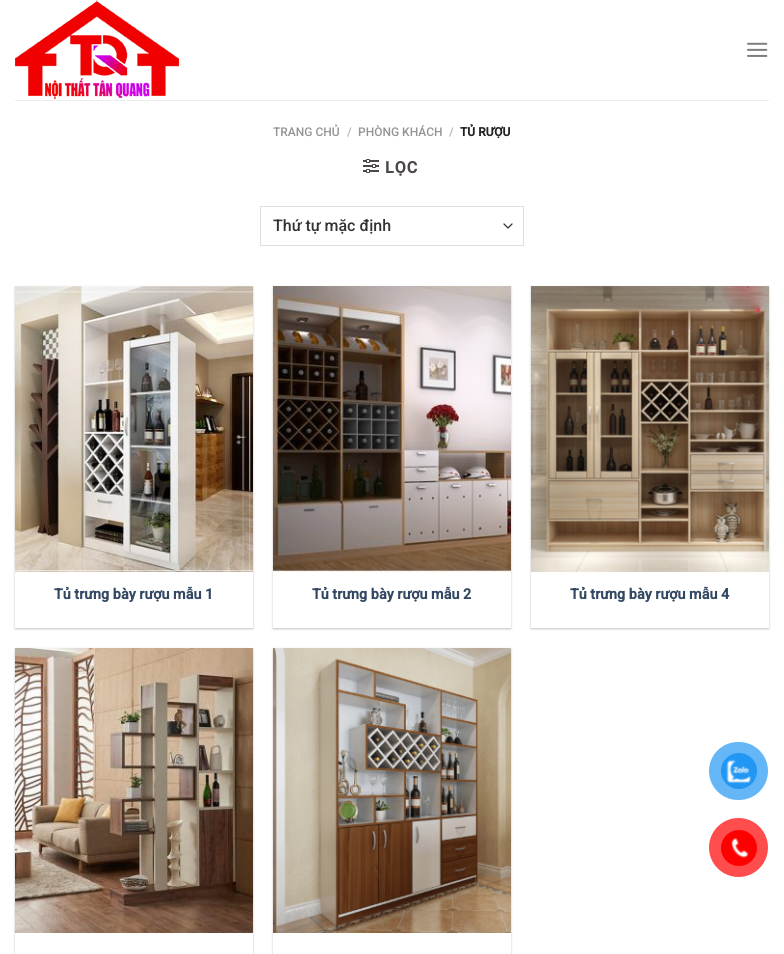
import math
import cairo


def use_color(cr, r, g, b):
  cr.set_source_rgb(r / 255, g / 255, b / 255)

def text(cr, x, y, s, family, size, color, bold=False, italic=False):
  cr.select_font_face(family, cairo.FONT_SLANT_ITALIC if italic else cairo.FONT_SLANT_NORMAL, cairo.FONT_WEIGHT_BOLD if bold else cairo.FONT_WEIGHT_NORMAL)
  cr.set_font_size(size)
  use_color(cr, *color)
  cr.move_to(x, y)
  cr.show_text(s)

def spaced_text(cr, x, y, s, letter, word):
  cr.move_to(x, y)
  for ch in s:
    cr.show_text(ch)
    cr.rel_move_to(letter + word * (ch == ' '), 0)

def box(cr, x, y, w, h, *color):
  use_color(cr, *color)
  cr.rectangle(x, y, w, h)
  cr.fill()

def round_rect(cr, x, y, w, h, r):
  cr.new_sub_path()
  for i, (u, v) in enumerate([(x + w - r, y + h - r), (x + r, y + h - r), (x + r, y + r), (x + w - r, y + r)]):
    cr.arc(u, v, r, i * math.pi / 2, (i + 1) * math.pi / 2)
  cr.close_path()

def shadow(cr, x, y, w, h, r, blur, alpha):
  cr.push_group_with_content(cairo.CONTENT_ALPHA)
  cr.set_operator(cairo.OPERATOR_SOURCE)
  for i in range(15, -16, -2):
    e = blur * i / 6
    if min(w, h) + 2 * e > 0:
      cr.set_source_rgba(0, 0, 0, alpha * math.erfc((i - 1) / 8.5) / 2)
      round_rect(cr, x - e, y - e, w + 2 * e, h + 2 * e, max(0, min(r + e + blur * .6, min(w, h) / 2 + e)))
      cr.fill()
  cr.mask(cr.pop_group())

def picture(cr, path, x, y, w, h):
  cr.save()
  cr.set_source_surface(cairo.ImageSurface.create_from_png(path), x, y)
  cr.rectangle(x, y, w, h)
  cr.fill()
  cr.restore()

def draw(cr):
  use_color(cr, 255, 255, 255)
  cr.paint()
  picture(cr, "img_01.png", 15, 0, 164, 99)
  picture(cr, "img_02.png", 747, 42, 21, 15)
  box(cr, 15, 100, 754, 1, 237, 237, 237)
  picture(cr, "img_03.png", 363, 159, 16, 14)
  cr.new_path()
  cr.move_to(504, 224)
  cr.line_to(508, 228)
  cr.line_to(512, 224)
  use_color(cr, 51, 51, 51)
  cr.set_line_width(1.3)
  cr.set_line_cap(cairo.LINE_CAP_ROUND)
  cr.set_line_join(cairo.LINE_JOIN_ROUND)
  cr.stroke()
  cr.rectangle(260.5, 206.5, 263, 39)
  use_color(cr, 221, 221, 221)
  cr.set_line_width(1)
  cr.set_line_cap(cairo.LINE_CAP_BUTT)
  cr.set_line_join(cairo.LINE_JOIN_MITER)
  cr.stroke()
  cr.save()
  cr.set_fill_rule(cairo.FILL_RULE_EVEN_ODD)
  cr.new_path()
  cr.move_to(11, 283)
  cr.line_to(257, 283)
  cr.line_to(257, 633)
  cr.line_to(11, 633)
  cr.close_path()
  cr.move_to(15, 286)
  cr.line_to(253, 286)
  cr.line_to(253, 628)
  cr.line_to(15, 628)
  cr.close_path()
  cr.clip()
  use_color(cr, 0, 0, 0)
  shadow(cr, 15, 287, 238, 342, 0, 1, 0.24)
  cr.restore()
  picture(cr, "img_04.png", 15, 286, 238, 286)
  cr.save()
  cr.set_fill_rule(cairo.FILL_RULE_EVEN_ODD)
  cr.new_path()
  cr.move_to(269, 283)
  cr.line_to(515, 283)
  cr.line_to(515, 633)
  cr.line_to(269, 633)
  cr.close_path()
  cr.move_to(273, 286)
  cr.line_to(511, 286)
  cr.line_to(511, 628)
  cr.line_to(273, 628)
  cr.close_path()
  cr.clip()
  use_color(cr, 0, 0, 0)
  shadow(cr, 273, 287, 238, 342, 0, 1, 0.24)
  cr.restore()
  picture(cr, "img_05.png", 273, 286, 238, 286)
  cr.save()
  cr.set_fill_rule(cairo.FILL_RULE_EVEN_ODD)
  cr.new_path()
  cr.move_to(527, 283)
  cr.line_to(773, 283)
  cr.line_to(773, 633)
  cr.line_to(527, 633)
  cr.close_path()
  cr.move_to(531, 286)
  cr.line_to(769, 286)
  cr.line_to(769, 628)
  cr.line_to(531, 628)
  cr.close_path()
  cr.clip()
  use_color(cr, 0, 0, 0)
  shadow(cr, 531, 287, 238, 342, 0, 1, 0.24)
  cr.restore()
  picture(cr, "img_06.png", 531, 286, 238, 286)
  cr.save()
  cr.set_fill_rule(cairo.FILL_RULE_EVEN_ODD)
  cr.new_path()
  cr.move_to(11, 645)
  cr.line_to(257, 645)
  cr.line_to(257, 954)
  cr.line_to(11, 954)
  cr.close_path()
  cr.move_to(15, 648)
  cr.line_to(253, 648)
  cr.line_to(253, 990)
  cr.line_to(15, 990)
  cr.close_path()
  cr.clip()
  use_color(cr, 0, 0, 0)
  shadow(cr, 15, 649, 238, 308, 0, 1, 0.24)
  cr.restore()
  picture(cr, "img_07.png", 15, 648, 238, 285)
  cr.save()
  cr.set_fill_rule(cairo.FILL_RULE_EVEN_ODD)
  cr.new_path()
  cr.move_to(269, 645)
  cr.line_to(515, 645)
  cr.line_to(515, 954)
  cr.line_to(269, 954)
  cr.close_path()
  cr.move_to(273, 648)
  cr.line_to(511, 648)
  cr.line_to(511, 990)
  cr.line_to(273, 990)
  cr.close_path()
  cr.clip()
  use_color(cr, 0, 0, 0)
  shadow(cr, 273, 649, 238, 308, 0, 1, 0.24)
  cr.restore()
  picture(cr, "img_08.png", 273, 648, 238, 285)
  use_color(cr, 100, 182, 247)
  round_rect(cr, 709, 742, 59, 58, 29)
  cr.fill()
  use_color(cr, 33, 150, 243)
  cr.arc(739, 771, 18, 0, 2 * math.pi)
  cr.fill()
  picture(cr, "img_09.png", 726, 759, 25, 25)
  use_color(cr, 255, 77, 77)
  cr.arc(738.5, 847.5, 29.5, 0, 2 * math.pi)
  cr.fill()
  use_color(cr, 255, 0, 0)
  cr.arc(739, 848, 18, 0, 2 * math.pi)
  cr.fill()
  picture(cr, "img_10.png", 731, 838, 18, 20)
  text(cr, 273, 136, "TRANG CHỦ", "Roboto Medium", 12, (148, 148, 148))
  text(cr, 347, 136, "/", "Roboto Medium", 12, (178, 178, 178))
  text(cr, 358, 136, "PHÒNG KHÁCH", "Roboto Medium", 12, (148, 148, 148))
  text(cr, 449, 136, "/", "Roboto Medium", 12, (178, 178, 178))
  text(cr, 460, 136, "TỦ RƯỢU", "Roboto", 12, (34, 34, 34), bold=True)
  cr.set_font_size(16)
  use_color(cr, 76, 71, 71)
  spaced_text(cr, 385, 173, "LỌC", 1, 0)
  text(cr, 273, 231, "Thứ tự mặc định", "Roboto Medium", 16, (51, 51, 51))
  text(cr, 54, 599, "Tủ trưng bày rượu mẫu 1", "Roboto", 14.4, (51, 72, 98), bold=True)
  text(cr, 312, 599, "Tủ trưng bày rượu mẫu 2", "Roboto", 14.4, (51, 72, 98), bold=True)
  text(cr, 570, 599, "Tủ trưng bày rượu mẫu 4", "Roboto", 14.4, (51, 72, 98), bold=True)


surface = cairo.ImageSurface(cairo.FORMAT_RGB24, 784, 954)
cr = cairo.Context(surface)
options = cairo.FontOptions()
options.set_hint_metrics(cairo.HINT_METRICS_OFF)
options.set_hint_style(cairo.HINT_STYLE_NONE)
cr.set_font_options(options)
cr.set_miter_limit(4)
draw(cr)
surface.write_to_png("out.png")
